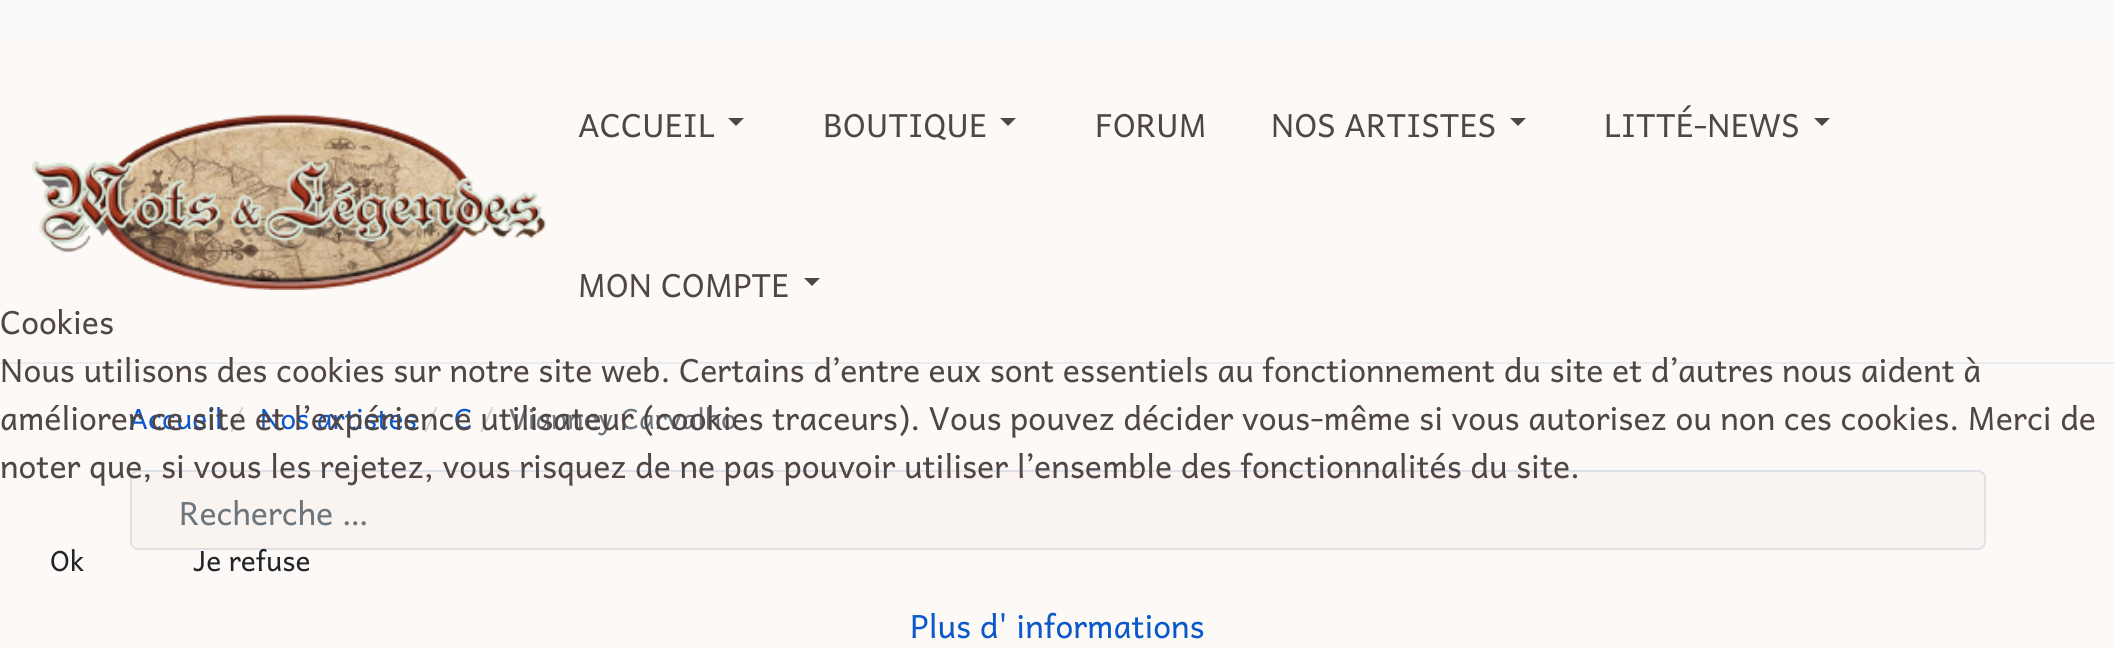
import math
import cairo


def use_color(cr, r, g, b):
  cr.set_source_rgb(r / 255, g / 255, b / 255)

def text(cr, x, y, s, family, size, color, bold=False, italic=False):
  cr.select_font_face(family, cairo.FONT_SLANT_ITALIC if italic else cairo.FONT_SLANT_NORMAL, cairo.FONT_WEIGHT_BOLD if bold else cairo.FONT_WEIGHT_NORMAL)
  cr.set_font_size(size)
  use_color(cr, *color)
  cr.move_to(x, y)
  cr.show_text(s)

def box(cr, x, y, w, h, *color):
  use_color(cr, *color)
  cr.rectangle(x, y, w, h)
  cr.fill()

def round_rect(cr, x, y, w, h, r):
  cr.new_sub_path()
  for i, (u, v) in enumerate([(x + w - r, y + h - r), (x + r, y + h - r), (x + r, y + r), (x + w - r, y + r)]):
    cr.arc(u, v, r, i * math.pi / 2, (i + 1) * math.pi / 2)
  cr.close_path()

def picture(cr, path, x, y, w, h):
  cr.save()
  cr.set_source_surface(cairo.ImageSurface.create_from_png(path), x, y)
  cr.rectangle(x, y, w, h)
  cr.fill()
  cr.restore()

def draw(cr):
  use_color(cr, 252, 249, 246)
  cr.paint()
  box(cr, 0, 0, 2114, 42, 248, 249, 250)
  picture(cr, "img_01.png", 32, 114, 514, 176)
  use_color(cr, 80, 70, 70)
  cr.new_path()
  cr.move_to(728, 118)
  cr.line_to(744, 118)
  cr.line_to(736, 126)
  cr.close_path()
  cr.fill()
  cr.new_path()
  cr.move_to(1000, 118)
  cr.line_to(1016, 118)
  cr.line_to(1008, 126)
  cr.close_path()
  cr.fill()
  cr.new_path()
  cr.move_to(1510, 118)
  cr.line_to(1526, 118)
  cr.line_to(1518, 126)
  cr.close_path()
  cr.fill()
  cr.new_path()
  cr.move_to(1814, 118)
  cr.line_to(1830, 118)
  cr.line_to(1822, 126)
  cr.close_path()
  cr.fill()
  cr.new_path()
  cr.move_to(804, 278)
  cr.line_to(820, 278)
  cr.line_to(812, 286)
  cr.close_path()
  cr.fill()
  box(cr, 0, 362, 2114, 2, 233, 236, 239)
  use_color(cr, 249, 244, 239)
  round_rect(cr, 131, 471, 1854, 78, 7)
  cr.fill_preserve()
  use_color(cr, 222, 226, 230)
  cr.stroke()
  text(cr, 578, 137, "ACCUEIL", "Andika", 32, (80, 70, 70))
  text(cr, 823, 137, "BOUTIQUE", "Andika", 32, (80, 70, 70))
  text(cr, 1095, 137, "FORUM", "Andika", 32, (80, 70, 70))
  text(cr, 1271, 137, "NOS ARTISTES", "Andika", 32, (80, 70, 70))
  text(cr, 1604, 137, "LITTÉ-NEWS", "Andika", 32, (80, 70, 70))
  text(cr, 578, 297, "MON COMPTE", "Andika", 32, (80, 70, 70))
  text(cr, 129, 429, "Accueil", "Andika", 28, (10, 88, 202))
  text(cr, 230, 429, "/", "Andika", 28, (206, 212, 218))
  text(cr, 260, 429, "Nos artistes", "Andika", 28, (10, 88, 202))
  text(cr, 424, 429, "/", "Andika", 28, (206, 212, 218))
  text(cr, 454, 429, "C", "Andika", 28, (10, 88, 202))
  text(cr, 480, 429, "/", "Andika", 28, (206, 212, 218))
  text(cr, 509, 429, "Vianney Carvalho", "Andika", 28, (108, 117, 125))
  text(cr, 179, 525, "Recherche …", "Andika", 32, (108, 117, 125))
  text(cr, 0, 334, "Cookies", "Andika", 32, (80, 70, 70))
  text(cr, 0, 382, "Nous utilisons des cookies sur notre site web. Certains d’entre eux sont essentiels au fonctionnement du site et d’autres nous aident à", "Andika", 32, (80, 70, 70))
  text(cr, 0, 430, "améliorer ce site et l’expérience utilisateur (cookies traceurs). Vous pouvez décider vous-même si vous autorisez ou non ces cookies. Merci de", "Andika", 32, (80, 70, 70))
  text(cr, 0, 478, "noter que, si vous les rejetez, vous risquez de ne pas pouvoir utiliser l’ensemble des fonctionnalités du site.", "Andika", 32, (80, 70, 70))
  text(cr, 50, 571, "Ok", "Andika", 28, (33, 37, 41))
  text(cr, 193, 571, "Je refuse", "Andika", 28, (33, 37, 41))
  text(cr, 910, 638, "Plus d' informations", "Andika", 32, (10, 88, 202))


surface = cairo.ImageSurface(cairo.FORMAT_RGB24, 2114, 648)
cr = cairo.Context(surface)
options = cairo.FontOptions()
options.set_hint_metrics(cairo.HINT_METRICS_OFF)
options.set_hint_style(cairo.HINT_STYLE_NONE)
cr.set_font_options(options)
cr.set_miter_limit(4)
draw(cr)
surface.write_to_png("out.png")
